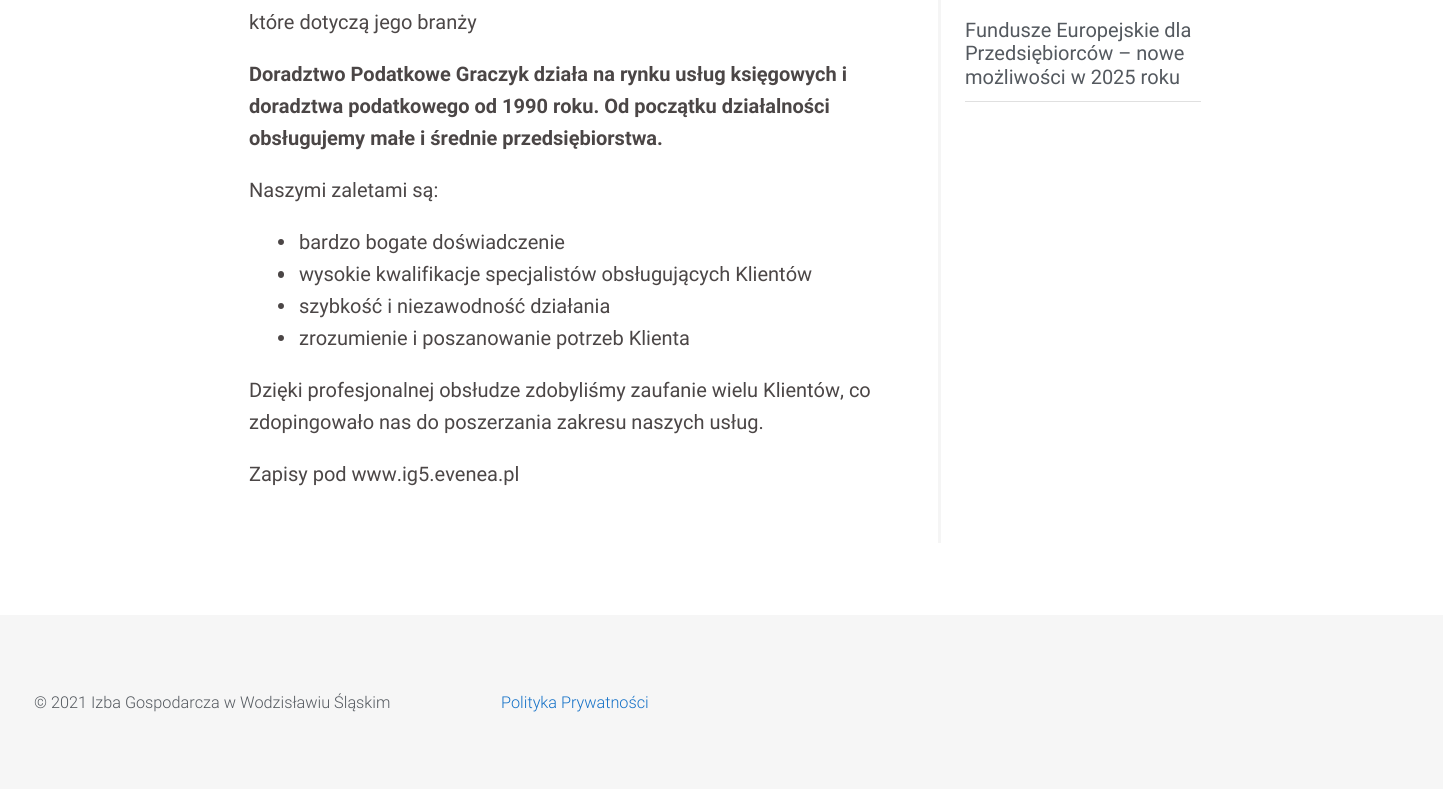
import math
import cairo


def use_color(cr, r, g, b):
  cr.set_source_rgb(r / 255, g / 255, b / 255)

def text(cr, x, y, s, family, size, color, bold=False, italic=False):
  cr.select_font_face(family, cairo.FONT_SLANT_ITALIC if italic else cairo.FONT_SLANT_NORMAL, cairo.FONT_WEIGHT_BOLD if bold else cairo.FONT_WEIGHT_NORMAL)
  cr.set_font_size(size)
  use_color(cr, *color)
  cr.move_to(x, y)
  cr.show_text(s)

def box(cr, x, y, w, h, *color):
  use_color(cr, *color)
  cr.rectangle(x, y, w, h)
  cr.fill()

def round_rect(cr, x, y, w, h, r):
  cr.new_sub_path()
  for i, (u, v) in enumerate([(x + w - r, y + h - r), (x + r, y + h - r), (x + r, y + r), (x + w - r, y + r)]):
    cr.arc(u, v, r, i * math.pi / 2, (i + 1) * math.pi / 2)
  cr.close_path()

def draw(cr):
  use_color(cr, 255, 255, 255)
  cr.paint()
  use_color(cr, 75, 70, 70)
  cr.arc(281, 242, 3, 0, 2 * math.pi)
  cr.fill()
  round_rect(cr, 278, 271, 6, 7, 3)
  cr.fill()
  cr.arc(281, 306, 3, 0, 2 * math.pi)
  cr.fill()
  cr.arc(281, 338, 3, 0, 2 * math.pi)
  cr.fill()
  box(cr, 938, 0, 3, 543, 245, 245, 245)
  box(cr, 965, 101, 236, 1, 224, 224, 224)
  box(cr, 0, 615, 1443, 174, 246, 246, 246)
  text(cr, 249, 29, "które dotyczą jego branży", "Roboto", 20, (75, 70, 70))
  text(cr, 249, 81, "Doradztwo Podatkowe Graczyk działa na rynku usług księgowych i", "Roboto", 20, (75, 70, 70), bold=True)
  text(cr, 249, 113, "doradztwa podatkowego od 1990 roku. Od początku działalności", "Roboto", 20, (75, 70, 70), bold=True)
  text(cr, 249, 145, "obsługujemy małe i średnie przedsiębiorstwa.", "Roboto", 20, (75, 70, 70), bold=True)
  text(cr, 249, 197, "Naszymi zaletami są:", "Roboto", 20, (75, 70, 70))
  text(cr, 299, 249, "bardzo bogate doświadczenie", "Roboto", 20, (75, 70, 70))
  text(cr, 299, 281, "wysokie kwalifikacje specjalistów obsługujących Klientów", "Roboto", 20, (75, 70, 70))
  text(cr, 299, 313, "szybkość i niezawodność działania", "Roboto", 20, (75, 70, 70))
  text(cr, 299, 345, "zrozumienie i poszanowanie potrzeb Klienta", "Roboto", 20, (75, 70, 70))
  text(cr, 249, 397, "Dzięki profesjonalnej obsłudze zdobyliśmy zaufanie wielu Klientów, co", "Roboto", 20, (75, 70, 70))
  text(cr, 249, 429, "zdopingowało nas do poszerzania zakresu naszych usług.", "Roboto", 20, (75, 70, 70))
  text(cr, 249, 481, "Zapisy pod www.ig5.evenea.pl", "Roboto", 20, (75, 70, 70))
  text(cr, 965, 37, "Fundusze Europejskie dla", "Roboto", 20, (84, 89, 95))
  text(cr, 965, 60, "Przedsiębiorców – nowe", "Roboto", 20, (84, 89, 95))
  text(cr, 965, 84, "możliwości w 2025 roku", "Roboto", 20, (84, 89, 95))
  text(cr, 34, 708, "© 2021 Izba Gospodarcza w Wodzisławiu Śląskim", "Roboto Light", 16.25, (84, 89, 95))
  text(cr, 501, 708, "Polityka Prywatności", "Roboto Light", 16.25, (20, 113, 199))


surface = cairo.ImageSurface(cairo.FORMAT_RGB24, 1443, 789)
cr = cairo.Context(surface)
options = cairo.FontOptions()
options.set_hint_metrics(cairo.HINT_METRICS_OFF)
options.set_hint_style(cairo.HINT_STYLE_NONE)
cr.set_font_options(options)
cr.set_miter_limit(4)
draw(cr)
surface.write_to_png("out.png")
